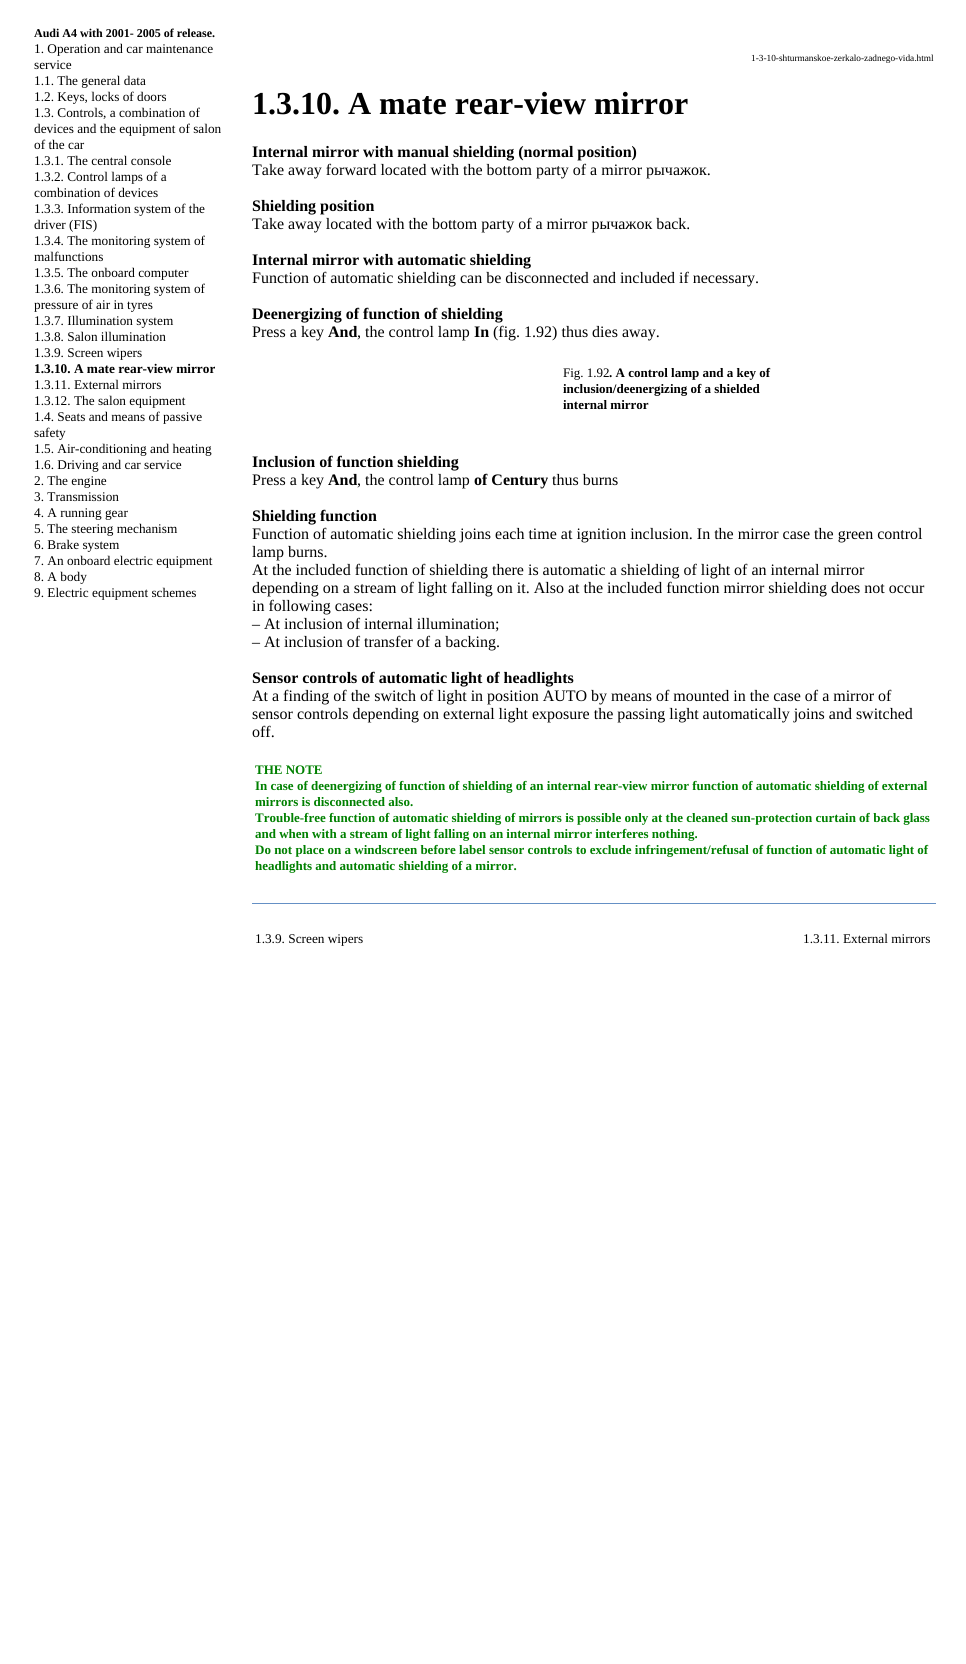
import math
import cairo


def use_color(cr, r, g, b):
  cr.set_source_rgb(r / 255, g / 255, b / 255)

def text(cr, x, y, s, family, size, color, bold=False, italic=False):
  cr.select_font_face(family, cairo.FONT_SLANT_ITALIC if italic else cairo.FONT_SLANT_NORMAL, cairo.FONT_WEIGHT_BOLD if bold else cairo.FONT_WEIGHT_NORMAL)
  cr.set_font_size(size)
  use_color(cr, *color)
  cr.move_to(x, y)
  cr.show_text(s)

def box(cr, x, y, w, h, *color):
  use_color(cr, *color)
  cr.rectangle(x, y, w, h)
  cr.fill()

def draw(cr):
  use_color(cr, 255, 255, 255)
  cr.paint()
  box(cr, 252, 903, 684, 1, 101, 144, 197)
  text(cr, 34, 37, "Audi A4 with 2001- 2005 of release.", "Liberation Serif", 12, (0, 0, 0), bold=True)
  text(cr, 34, 53, "1. Operation and car maintenance", "Liberation Serif", 13.3, (0, 0, 0))
  text(cr, 34, 69, "service", "Liberation Serif", 13.3, (0, 0, 0))
  text(cr, 34, 85, "1.1. The general data", "Liberation Serif", 13.3, (0, 0, 0))
  text(cr, 34, 101, "1.2. Keys, locks of doors", "Liberation Serif", 13.3, (0, 0, 0))
  text(cr, 34, 117, "1.3. Controls, a combination of", "Liberation Serif", 13.3, (0, 0, 0))
  text(cr, 34, 133, "devices and the equipment of salon", "Liberation Serif", 13.3, (0, 0, 0))
  text(cr, 34, 149, "of the car", "Liberation Serif", 13.3, (0, 0, 0))
  text(cr, 34, 165, "1.3.1. The central console", "Liberation Serif", 13.3, (0, 0, 0))
  text(cr, 34, 181, "1.3.2. Control lamps of a", "Liberation Serif", 13.3, (0, 0, 0))
  text(cr, 34, 197, "combination of devices", "Liberation Serif", 13.3, (0, 0, 0))
  text(cr, 34, 213, "1.3.3. Information system of the", "Liberation Serif", 13.3, (0, 0, 0))
  text(cr, 34, 229, "driver (FIS)", "Liberation Serif", 13.3, (0, 0, 0))
  text(cr, 34, 245, "1.3.4. The monitoring system of", "Liberation Serif", 13.3, (0, 0, 0))
  text(cr, 34, 261, "malfunctions", "Liberation Serif", 13.3, (0, 0, 0))
  text(cr, 34, 277, "1.3.5. The onboard computer", "Liberation Serif", 13.3, (0, 0, 0))
  text(cr, 34, 293, "1.3.6. The monitoring system of", "Liberation Serif", 13.3, (0, 0, 0))
  text(cr, 34, 309, "pressure of air in tyres", "Liberation Serif", 13.3, (0, 0, 0))
  text(cr, 34, 325, "1.3.7. Illumination system", "Liberation Serif", 13.3, (0, 0, 0))
  text(cr, 34, 341, "1.3.8. Salon illumination", "Liberation Serif", 13.3, (0, 0, 0))
  text(cr, 34, 357, "1.3.9. Screen wipers", "Liberation Serif", 13.3, (0, 0, 0))
  text(cr, 34, 373, "1.3.10. A mate rear-view mirror", "Liberation Serif", 13.3, (0, 0, 0), bold=True)
  text(cr, 34, 389, "1.3.11. External mirrors", "Liberation Serif", 13.3, (0, 0, 0))
  text(cr, 34, 405, "1.3.12. The salon equipment", "Liberation Serif", 13.3, (0, 0, 0))
  text(cr, 34, 421, "1.4. Seats and means of passive", "Liberation Serif", 13.3, (0, 0, 0))
  text(cr, 34, 437, "safety", "Liberation Serif", 13.3, (0, 0, 0))
  text(cr, 34, 453, "1.5. Air-conditioning and heating", "Liberation Serif", 13.3, (0, 0, 0))
  text(cr, 34, 469, "1.6. Driving and car service", "Liberation Serif", 13.3, (0, 0, 0))
  text(cr, 34, 485, "2. The engine", "Liberation Serif", 13.3, (0, 0, 0))
  text(cr, 34, 501, "3. Transmission", "Liberation Serif", 13.3, (0, 0, 0))
  text(cr, 34, 517, "4. A running gear", "Liberation Serif", 13.3, (0, 0, 0))
  text(cr, 34, 533, "5. The steering mechanism", "Liberation Serif", 13.3, (0, 0, 0))
  text(cr, 34, 549, "6. Brake system", "Liberation Serif", 13.3, (0, 0, 0))
  text(cr, 34, 565, "7. An onboard electric equipment", "Liberation Serif", 13.3, (0, 0, 0))
  text(cr, 34, 581, "8. A body", "Liberation Serif", 13.3, (0, 0, 0))
  text(cr, 34, 597, "9. Electric equipment schemes", "Liberation Serif", 13.3, (0, 0, 0))
  text(cr, 751, 61, "1-3-10-shturmanskoe-zerkalo-zadnego-vida.html", "Liberation Serif", 9.3, (0, 0, 0))
  text(cr, 252, 114, "1.3.10. A mate rear-view mirror", "Liberation Serif", 32, (0, 0, 0), bold=True)
  text(cr, 252, 157, "Internal mirror with manual shielding (normal position)", "Liberation Serif", 16, (0, 0, 0), bold=True)
  text(cr, 252, 175, "Take away forward located with the bottom party of a mirror рычажок.", "Liberation Serif", 16, (0, 0, 0))
  text(cr, 252, 211, "Shielding position", "Liberation Serif", 16, (0, 0, 0), bold=True)
  text(cr, 252, 229, "Take away located with the bottom party of a mirror рычажок back.", "Liberation Serif", 16, (0, 0, 0))
  text(cr, 252, 265, "Internal mirror with automatic shielding", "Liberation Serif", 16, (0, 0, 0), bold=True)
  text(cr, 252, 283, "Function of automatic shielding can be disconnected and included if necessary.", "Liberation Serif", 16, (0, 0, 0))
  text(cr, 252, 319, "Deenergizing of function of shielding", "Liberation Serif", 16, (0, 0, 0), bold=True)
  text(cr, 252, 337, "Press a key", "Liberation Serif", 16, (0, 0, 0))
  text(cr, 328, 337, "And", "Liberation Serif", 16, (0, 0, 0), bold=True)
  text(cr, 357, 337, ", the control lamp", "Liberation Serif", 16, (0, 0, 0))
  text(cr, 474, 337, "In", "Liberation Serif", 16, (0, 0, 0), bold=True)
  text(cr, 493, 337, "(fig. 1.92) thus dies away.", "Liberation Serif", 16, (0, 0, 0))
  text(cr, 563, 377, "Fig. 1.92", "Liberation Serif", 13, (0, 0, 0))
  text(cr, 609, 377, ". A control lamp and a key of", "Liberation Serif", 13, (0, 0, 0), bold=True)
  text(cr, 563, 393, "inclusion/deenergizing of a shielded", "Liberation Serif", 13, (0, 0, 0), bold=True)
  text(cr, 563, 409, "internal mirror", "Liberation Serif", 13, (0, 0, 0), bold=True)
  text(cr, 252, 467, "Inclusion of function shielding", "Liberation Serif", 16, (0, 0, 0), bold=True)
  text(cr, 252, 485, "Press a key", "Liberation Serif", 16, (0, 0, 0))
  text(cr, 328, 485, "And", "Liberation Serif", 16, (0, 0, 0), bold=True)
  text(cr, 357, 485, ", the control lamp", "Liberation Serif", 16, (0, 0, 0))
  text(cr, 474, 485, "of Century", "Liberation Serif", 16, (0, 0, 0), bold=True)
  text(cr, 552, 485, "thus burns", "Liberation Serif", 16, (0, 0, 0))
  text(cr, 252, 521, "Shielding function", "Liberation Serif", 16, (0, 0, 0), bold=True)
  text(cr, 252, 539, "Function of automatic shielding joins each time at ignition inclusion. In the mirror case the green control", "Liberation Serif", 16, (0, 0, 0))
  text(cr, 252, 557, "lamp burns.", "Liberation Serif", 16, (0, 0, 0))
  text(cr, 252, 575, "At the included function of shielding there is automatic a shielding of light of an internal mirror", "Liberation Serif", 16, (0, 0, 0))
  text(cr, 252, 593, "depending on a stream of light falling on it. Also at the included function mirror shielding does not occur", "Liberation Serif", 16, (0, 0, 0))
  text(cr, 252, 611, "in following cases:", "Liberation Serif", 16, (0, 0, 0))
  text(cr, 252, 629, "– At inclusion of internal illumination;", "Liberation Serif", 16, (0, 0, 0))
  text(cr, 252, 647, "– At inclusion of transfer of a backing.", "Liberation Serif", 16, (0, 0, 0))
  text(cr, 252, 683, "Sensor controls of automatic light of headlights", "Liberation Serif", 16, (0, 0, 0), bold=True)
  text(cr, 252, 701, "At a finding of the switch of light in position AUTO by means of mounted in the case of a mirror of", "Liberation Serif", 16, (0, 0, 0))
  text(cr, 252, 719, "sensor controls depending on external light exposure the passing light automatically joins and switched", "Liberation Serif", 16, (0, 0, 0))
  text(cr, 252, 737, "off.", "Liberation Serif", 16, (0, 0, 0))
  text(cr, 255, 774, "THE NOTE", "Liberation Serif", 13, (0, 128, 0), bold=True)
  text(cr, 255, 790, "In case of deenergizing of function of shielding of an internal rear-view mirror function of automatic shielding of external", "Liberation Serif", 13, (0, 128, 0), bold=True)
  text(cr, 255, 806, "mirrors is disconnected also.", "Liberation Serif", 13, (0, 128, 0), bold=True)
  text(cr, 255, 822, "Trouble-free function of automatic shielding of mirrors is possible only at the cleaned sun-protection curtain of back glass", "Liberation Serif", 13, (0, 128, 0), bold=True)
  text(cr, 255, 838, "and when with a stream of light falling on an internal mirror interferes nothing.", "Liberation Serif", 13, (0, 128, 0), bold=True)
  text(cr, 255, 854, "Do not place on a windscreen before label sensor controls to exclude infringement/refusal of function of automatic light of", "Liberation Serif", 13, (0, 128, 0), bold=True)
  text(cr, 255, 870, "headlights and automatic shielding of a mirror.", "Liberation Serif", 13, (0, 128, 0), bold=True)
  text(cr, 255, 943, "1.3.9. Screen wipers", "Liberation Serif", 13.3, (0, 0, 0))
  text(cr, 803, 943, "1.3.11. External mirrors", "Liberation Serif", 13.3, (0, 0, 0))


surface = cairo.ImageSurface(cairo.FORMAT_RGB24, 966, 1664)
cr = cairo.Context(surface)
options = cairo.FontOptions()
options.set_hint_metrics(cairo.HINT_METRICS_OFF)
options.set_hint_style(cairo.HINT_STYLE_NONE)
cr.set_font_options(options)
cr.set_miter_limit(4)
draw(cr)
surface.write_to_png("out.png")
